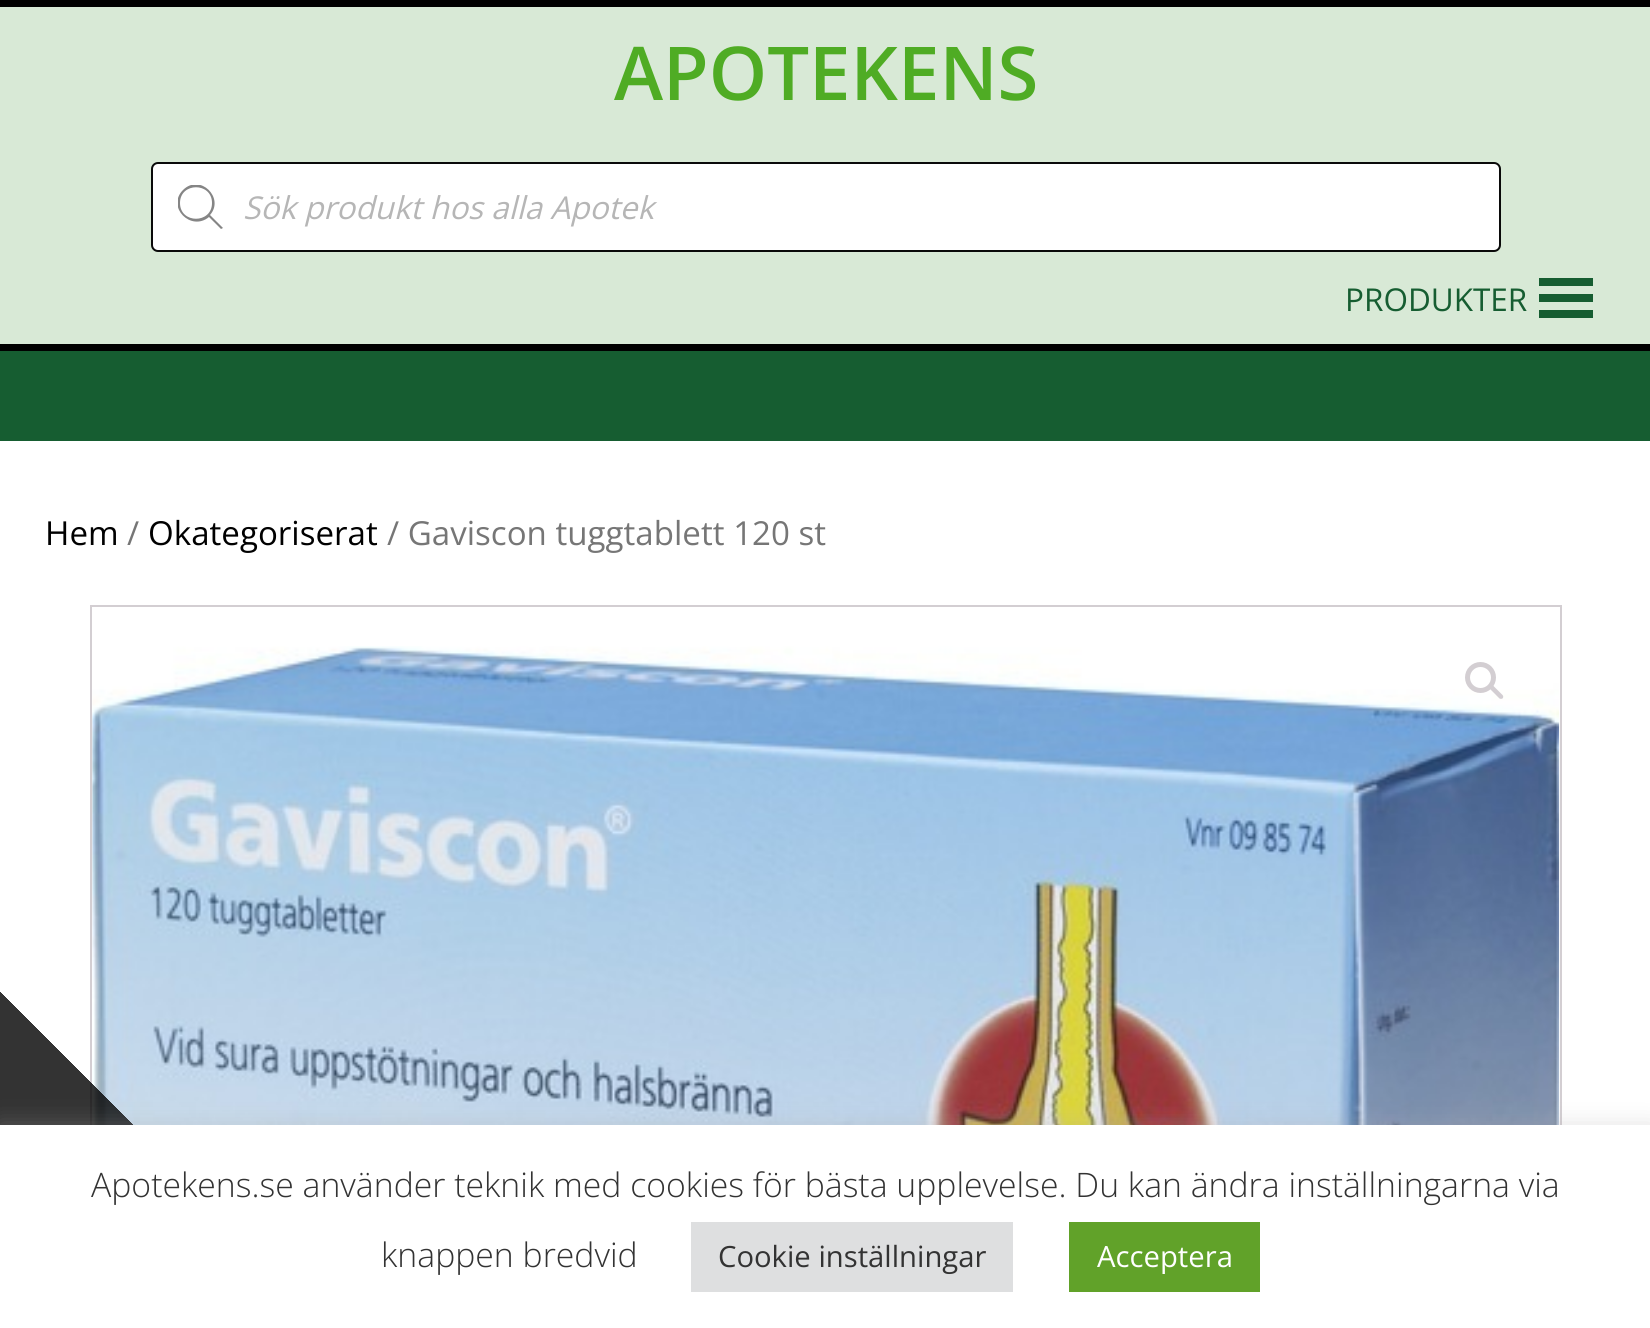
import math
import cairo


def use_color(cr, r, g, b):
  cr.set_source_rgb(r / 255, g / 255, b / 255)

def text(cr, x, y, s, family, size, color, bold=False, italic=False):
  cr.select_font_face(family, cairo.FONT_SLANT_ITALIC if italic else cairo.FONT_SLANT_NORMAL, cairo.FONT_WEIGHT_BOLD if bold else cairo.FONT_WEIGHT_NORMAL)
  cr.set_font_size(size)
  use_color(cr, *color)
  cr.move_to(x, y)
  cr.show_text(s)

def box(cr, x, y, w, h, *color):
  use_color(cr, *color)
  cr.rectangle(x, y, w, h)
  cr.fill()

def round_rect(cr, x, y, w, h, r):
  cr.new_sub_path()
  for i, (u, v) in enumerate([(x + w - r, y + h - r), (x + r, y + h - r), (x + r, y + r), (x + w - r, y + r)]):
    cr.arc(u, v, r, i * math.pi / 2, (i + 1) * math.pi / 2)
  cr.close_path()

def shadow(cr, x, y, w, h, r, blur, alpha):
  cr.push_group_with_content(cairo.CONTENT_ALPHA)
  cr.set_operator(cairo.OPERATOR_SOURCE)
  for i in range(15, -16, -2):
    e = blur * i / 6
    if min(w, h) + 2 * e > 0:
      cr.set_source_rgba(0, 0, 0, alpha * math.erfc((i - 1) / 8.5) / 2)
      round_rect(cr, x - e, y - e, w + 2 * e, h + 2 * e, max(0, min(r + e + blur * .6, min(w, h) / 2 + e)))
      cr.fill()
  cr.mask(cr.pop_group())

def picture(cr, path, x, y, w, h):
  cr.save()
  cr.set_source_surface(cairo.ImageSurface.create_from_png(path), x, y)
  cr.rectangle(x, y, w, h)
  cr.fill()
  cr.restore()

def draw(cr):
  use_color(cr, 255, 255, 255)
  cr.paint()
  box(cr, 0, 7, 1650, 337, 216, 233, 214)
  box(cr, 0, 0, 1650, 7, 0, 0, 0)
  use_color(cr, 255, 255, 255)
  round_rect(cr, 152, 163, 1348, 88, 6)
  cr.fill_preserve()
  use_color(cr, 10, 10, 10)
  cr.stroke()
  cr.save()
  cr.rectangle(178, 185, 45, 45)
  cr.clip()
  use_color(cr, 133, 133, 133)
  cr.new_path()
  cr.move_to(223, 228)
  cr.line_to(210, 215)
  cr.curve_to(225, 198, 200, 173, 183, 190)
  cr.curve_to(166, 207, 191, 232, 209, 217)
  cr.line_to(221, 229)
  cr.close_path()
  cr.move_to(180, 203)
  cr.curve_to(180, 182, 212, 182, 212, 203)
  cr.curve_to(212, 224, 180, 224, 180, 203)
  cr.close_path()
  cr.fill()
  cr.restore()
  box(cr, 0, 344, 1650, 7, 0, 0, 0)
  use_color(cr, 22, 93, 49)
  cr.new_path()
  cr.move_to(1593, 286)
  cr.line_to(1593, 278)
  cr.line_to(1539, 278)
  cr.line_to(1539, 286)
  cr.close_path()
  cr.move_to(1593, 302)
  cr.line_to(1593, 294)
  cr.line_to(1539, 294)
  cr.line_to(1539, 302)
  cr.close_path()
  cr.move_to(1593, 318)
  cr.line_to(1593, 310)
  cr.line_to(1539, 310)
  cr.line_to(1539, 318)
  cr.close_path()
  cr.fill()
  box(cr, 0, 351, 1650, 90, 22, 93, 49)
  cr.rectangle(91, 606, 1470, 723)
  use_color(cr, 211, 206, 210)
  cr.stroke()
  picture(cr, "img_01.png", 92, 646, 1468, 479)
  cr.arc(1480.5, 677.5, 13, 0, 2 * math.pi)
  cr.set_line_width(5)
  cr.stroke()
  cr.new_path()
  cr.move_to(1490, 685.5)
  cr.curve_to(1491, 684.5, 1492, 684.5, 1493, 685.5)
  cr.line_to(1502.5, 695)
  cr.curve_to(1503.5, 696, 1503.5, 697.5, 1502.5, 698.5)
  cr.curve_to(1501.5, 699, 1500.5, 699, 1499.5, 698.5)
  cr.line_to(1490, 689)
  cr.curve_to(1489, 688, 1489, 686.5, 1490, 685.5)
  cr.close_path()
  cr.fill()
  gradient = cairo.LinearGradient(338, 992, 0, 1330)
  gradient.add_color_stop_rgba(0.5, 0, 0, 0, 0)
  gradient.add_color_stop_rgba(0.5, 0, 0, 0, 0.8)
  cr.set_source(gradient)
  cr.rectangle(0, 992, 133, 133)
  cr.fill()
  use_color(cr, 172, 171, 171)
  shadow(cr, 0, 1123, 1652, 205, 0, 11, 0.3)
  box(cr, 0, 1125, 1650, 203, 255, 255, 255)
  box(cr, 691, 1222, 322, 70, 222, 223, 224)
  box(cr, 1069, 1222, 191, 70, 97, 162, 41)
  text(cr, 614, 100, "APOTEKENS", "Open Sans SemiBold", 74.25, (79, 172, 36))
  text(cr, 243, 219, "Sök produkt hos alla Apotek", "Open Sans", 31.5, (182, 182, 182), italic=True)
  text(cr, 1345, 311, "PRODUKTER", "Open Sans", 31.5, (22, 93, 49))
  text(cr, 45, 545, "Hem", "Open Sans", 33.1, (0, 0, 0))
  text(cr, 127, 545, "/", "Open Sans", 33.1, (118, 118, 118))
  text(cr, 148, 545, "Okategoriserat", "Open Sans", 33.1, (0, 0, 0))
  text(cr, 387, 545, "/ Gaviscon tuggtablett 120 st", "Open Sans", 33.1, (118, 118, 118))
  text(cr, 91, 1197, "Apotekens.se använder teknik med cookies för bästa upplevelse. Du kan ändra inställningarna via", "Open Sans Light", 33.75, (51, 51, 51))
  text(cr, 381, 1267, "knappen bredvid", "Open Sans Light", 33.75, (51, 51, 51))
  text(cr, 718, 1267, "Cookie inställningar", "Open Sans", 29.25, (51, 51, 51))
  text(cr, 1097, 1267, "Acceptera", "Open Sans", 29.25, (255, 255, 255))


surface = cairo.ImageSurface(cairo.FORMAT_RGB24, 1650, 1328)
cr = cairo.Context(surface)
options = cairo.FontOptions()
options.set_hint_metrics(cairo.HINT_METRICS_OFF)
options.set_hint_style(cairo.HINT_STYLE_NONE)
cr.set_font_options(options)
cr.set_miter_limit(4)
draw(cr)
surface.write_to_png("out.png")
